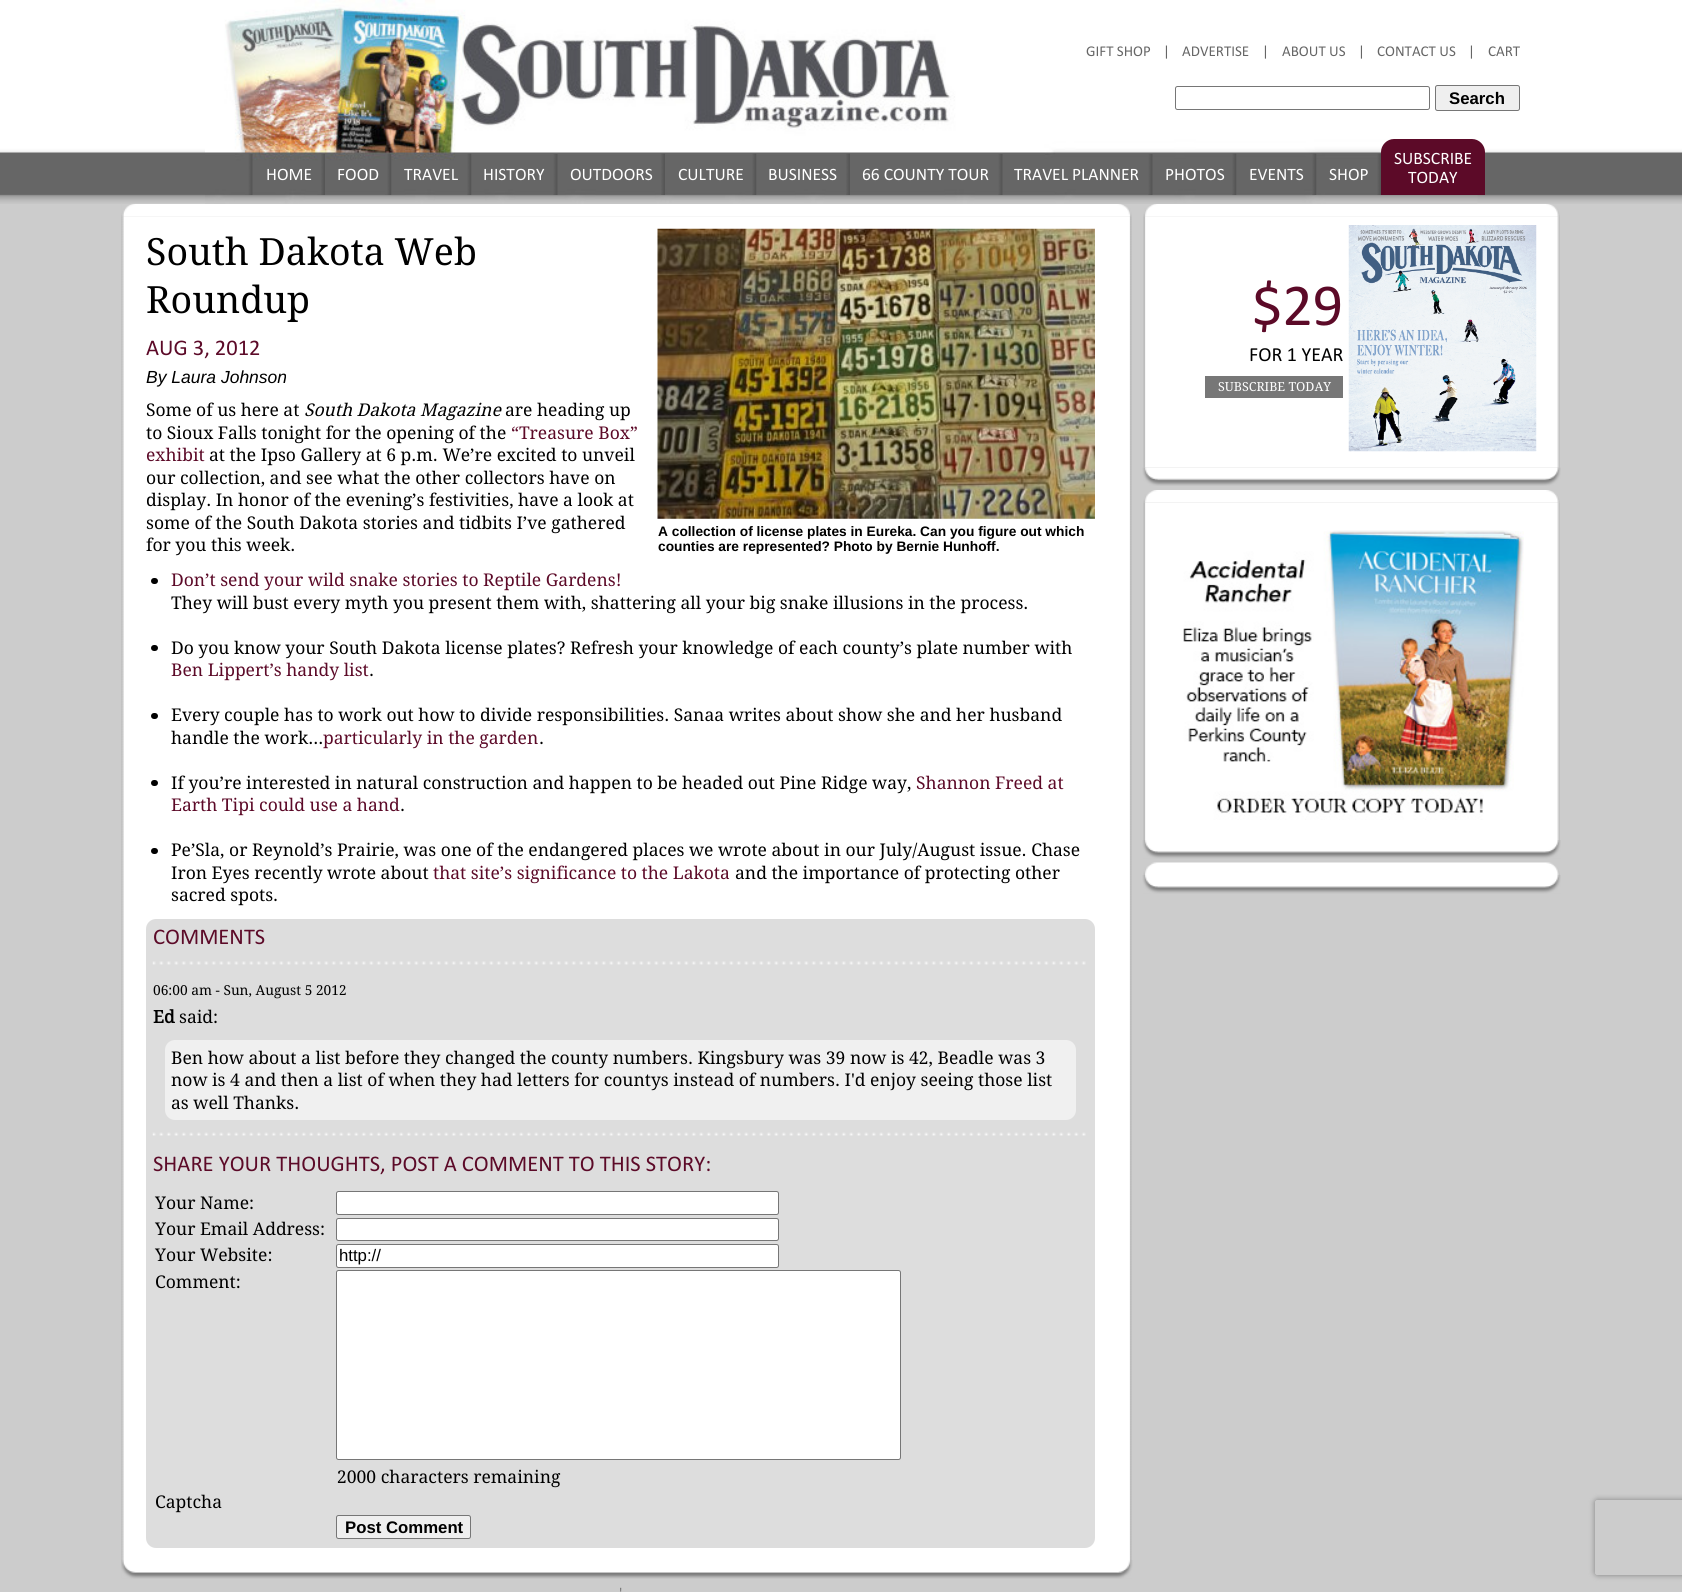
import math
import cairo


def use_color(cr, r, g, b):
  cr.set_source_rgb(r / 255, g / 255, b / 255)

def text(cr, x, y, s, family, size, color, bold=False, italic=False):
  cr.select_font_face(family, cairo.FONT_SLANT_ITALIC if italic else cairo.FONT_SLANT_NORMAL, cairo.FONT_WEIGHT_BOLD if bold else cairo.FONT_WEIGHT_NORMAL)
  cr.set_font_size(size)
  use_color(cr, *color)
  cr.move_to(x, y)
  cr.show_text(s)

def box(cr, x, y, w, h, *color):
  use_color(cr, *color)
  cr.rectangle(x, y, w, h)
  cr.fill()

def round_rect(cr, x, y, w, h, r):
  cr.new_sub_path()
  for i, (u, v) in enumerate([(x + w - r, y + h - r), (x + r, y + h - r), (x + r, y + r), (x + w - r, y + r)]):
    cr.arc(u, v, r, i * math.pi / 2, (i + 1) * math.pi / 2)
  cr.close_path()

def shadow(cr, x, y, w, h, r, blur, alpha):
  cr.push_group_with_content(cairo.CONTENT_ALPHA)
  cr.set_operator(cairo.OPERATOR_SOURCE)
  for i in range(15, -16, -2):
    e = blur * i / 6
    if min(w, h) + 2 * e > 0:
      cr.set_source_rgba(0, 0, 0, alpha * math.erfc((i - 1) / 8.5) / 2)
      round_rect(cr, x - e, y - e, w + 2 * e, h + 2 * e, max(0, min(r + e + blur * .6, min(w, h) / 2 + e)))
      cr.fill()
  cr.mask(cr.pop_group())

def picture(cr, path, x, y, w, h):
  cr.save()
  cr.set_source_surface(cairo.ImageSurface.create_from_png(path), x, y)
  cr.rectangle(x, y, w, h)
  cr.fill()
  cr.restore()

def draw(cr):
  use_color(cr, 204, 204, 204)
  cr.paint()
  picture(cr, "img_13.png", 121, 203, 1011, 14)
  picture(cr, "img_19.png", 1143, 203, 417, 14)
  picture(cr, "img_01.png", 0, 0, 1682, 204)
  picture(cr, "img_02.png", 205, 0, 1273, 204)
  round_rect(cr, 1175.5, 86.5, 254, 23, 2)
  use_color(cr, 118, 118, 118)
  cr.set_line_width(1)
  cr.stroke()
  use_color(cr, 239, 239, 239)
  round_rect(cr, 1435.5, 85.5, 84, 25, 2)
  cr.fill_preserve()
  use_color(cr, 118, 118, 118)
  cr.stroke()
  picture(cr, "img_03.png", 245, 153, 8, 42)
  picture(cr, "img_04.png", 317, 153, 8, 42)
  picture(cr, "img_05.png", 385, 153, 7, 42)
  picture(cr, "img_06.png", 467, 153, 5, 42)
  picture(cr, "img_07.png", 553, 154, 5, 41)
  picture(cr, "img_08.png", 661, 153, 4, 42)
  picture(cr, "img_06.png", 752, 153, 5, 42)
  picture(cr, "img_08.png", 846, 153, 4, 42)
  picture(cr, "img_07.png", 998, 154, 5, 41)
  picture(cr, "img_09.png", 1148, 154, 5, 41)
  picture(cr, "img_10.png", 1232, 153, 5, 42)
  picture(cr, "img_11.png", 1312, 153, 5, 42)
  picture(cr, "img_12.png", 1377, 153, 4, 42)
  use_color(cr, 92, 10, 40)
  cr.new_path()
  cr.move_to(1394, 139)
  cr.line_to(1472, 139)
  cr.curve_to(1479, 139, 1485, 145, 1485, 152)
  cr.line_to(1485, 195)
  cr.line_to(1381, 195)
  cr.line_to(1381, 152)
  cr.curve_to(1381, 145, 1387, 139, 1394, 139)
  cr.close_path()
  cr.fill()
  picture(cr, "img_14.png", 121, 216, 1011, 1344)
  picture(cr, "img_15.png", 657, 228, 438, 291)
  use_color(cr, 0, 0, 0)
  round_rect(cr, 151, 578, 7, 6, 3)
  cr.fill()
  round_rect(cr, 151, 645, 7, 6, 3)
  cr.fill()
  round_rect(cr, 151, 713, 7, 6, 3)
  cr.fill()
  round_rect(cr, 151, 780, 7, 6, 3)
  cr.fill()
  round_rect(cr, 151, 848, 7, 6, 3)
  cr.fill()
  use_color(cr, 221, 221, 221)
  round_rect(cr, 146, 919, 949, 629, 10)
  cr.fill()
  picture(cr, "img_16.png", 152, 961, 934, 4)
  use_color(cr, 240, 240, 240)
  round_rect(cr, 165, 1040, 911, 80, 10)
  cr.fill()
  picture(cr, "img_17.png", 152, 1132, 934, 4)
  use_color(cr, 255, 255, 255)
  round_rect(cr, 336.5, 1191.5, 442, 23, 2)
  cr.fill_preserve()
  use_color(cr, 118, 118, 118)
  cr.stroke()
  use_color(cr, 255, 255, 255)
  round_rect(cr, 336.5, 1218.5, 442, 22, 2)
  cr.fill_preserve()
  use_color(cr, 118, 118, 118)
  cr.stroke()
  use_color(cr, 255, 255, 255)
  round_rect(cr, 336.5, 1244.5, 442, 23, 2)
  cr.fill_preserve()
  use_color(cr, 118, 118, 118)
  cr.stroke()
  use_color(cr, 255, 255, 255)
  round_rect(cr, 336.5, 1270.5, 564, 189, 2)
  cr.fill_preserve()
  use_color(cr, 118, 118, 118)
  cr.stroke()
  use_color(cr, 239, 239, 239)
  round_rect(cr, 336.5, 1515.5, 134, 23, 2)
  cr.fill_preserve()
  use_color(cr, 118, 118, 118)
  cr.stroke()
  picture(cr, "img_18.png", 121, 1560, 1012, 19)
  picture(cr, "img_20.png", 1143, 216, 417, 252)
  box(cr, 1205, 376, 138, 22, 119, 119, 119)
  picture(cr, "img_21.png", 1348, 225, 189, 227)
  picture(cr, "img_22.png", 1142, 467, 419, 19)
  picture(cr, "img_23.png", 1143, 490, 417, 13)
  picture(cr, "img_24.png", 1143, 502, 417, 338)
  picture(cr, "img_25.png", 1183, 530, 341, 290)
  picture(cr, "img_26.png", 1142, 840, 419, 19)
  picture(cr, "img_27.png", 1143, 862, 417, 13)
  picture(cr, "img_26.png", 1142, 875, 419, 19)
  cr.save()
  cr.set_fill_rule(cairo.FILL_RULE_EVEN_ODD)
  cr.new_path()
  cr.move_to(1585, 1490)
  cr.line_to(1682, 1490)
  cr.line_to(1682, 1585)
  cr.line_to(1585, 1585)
  cr.close_path()
  cr.move_to(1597.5, 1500)
  cr.line_to(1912.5, 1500)
  cr.curve_to(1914, 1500, 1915, 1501, 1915, 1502.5)
  cr.line_to(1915, 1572.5)
  cr.curve_to(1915, 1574, 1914, 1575, 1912.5, 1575)
  cr.line_to(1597.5, 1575)
  cr.curve_to(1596, 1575, 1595, 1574, 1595, 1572.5)
  cr.line_to(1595, 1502.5)
  cr.curve_to(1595, 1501, 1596, 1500, 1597.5, 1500)
  cr.close_path()
  cr.clip()
  use_color(cr, 128, 128, 128)
  shadow(cr, 1595, 1500, 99, 75, 2.5, 3, 1)
  cr.restore()
  text(cr, 1086, 56, "GIFT SHOP", "Calibri", 15, (102, 102, 102))
  text(cr, 1163, 56, "|", "Calibri", 15, (102, 102, 102))
  text(cr, 1182, 56, "ADVERTISE", "Calibri", 15, (102, 102, 102))
  text(cr, 1262, 56, "|", "Calibri", 15, (102, 102, 102))
  text(cr, 1282, 56, "ABOUT US", "Calibri", 15, (102, 102, 102))
  text(cr, 1358, 56, "|", "Calibri", 15, (102, 102, 102))
  text(cr, 1377, 56, "CONTACT US", "Calibri", 15, (102, 102, 102))
  text(cr, 1468, 56, "|", "Calibri", 15, (102, 102, 102))
  text(cr, 1488, 56, "CART", "Calibri", 15, (102, 102, 102))
  text(cr, 1449, 104, "Search", "Liberation Sans", 16.75, (0, 0, 0), bold=True)
  text(cr, 266, 180, "HOME", "Calibri", 17.5, (255, 255, 255))
  text(cr, 337, 180, "FOOD", "Calibri", 17.5, (255, 255, 255))
  text(cr, 404, 180, "TRAVEL", "Calibri", 17.5, (255, 255, 255))
  text(cr, 483, 180, "HISTORY", "Calibri", 17.5, (255, 255, 255))
  text(cr, 570, 180, "OUTDOORS", "Calibri", 17.5, (255, 255, 255))
  text(cr, 678, 180, "CULTURE", "Calibri", 17.5, (255, 255, 255))
  text(cr, 768, 180, "BUSINESS", "Calibri", 17.5, (255, 255, 255))
  text(cr, 862, 180, "66 COUNTY TOUR", "Calibri", 17.5, (255, 255, 255))
  text(cr, 1014, 180, "TRAVEL PLANNER", "Calibri", 17.5, (255, 255, 255))
  text(cr, 1165, 180, "PHOTOS", "Calibri", 17.5, (255, 255, 255))
  text(cr, 1249, 180, "EVENTS", "Calibri", 17.5, (255, 255, 255))
  text(cr, 1329, 180, "SHOP", "Calibri", 17.5, (255, 255, 255))
  text(cr, 1394, 164, "SUBSCRIBE", "Calibri", 17.5, (255, 255, 255))
  text(cr, 1408, 183, "TODAY", "Calibri", 17.5, (255, 255, 255))
  text(cr, 146, 265, "South Dakota Web", "Droid Serif", 37.5, (0, 0, 0))
  text(cr, 146, 313, "Roundup", "Droid Serif", 37.5, (0, 0, 0))
  text(cr, 146, 355, "AUG 3, 2012", "Calibri", 22.5, (92, 10, 40))
  text(cr, 146, 383, "By Laura Johnson", "Liberation Sans", 17.5, (0, 0, 0), italic=True)
  text(cr, 146, 416, "Some of us here at", "Droid Serif", 17.5, (0, 0, 0))
  text(cr, 304, 416, "South Dakota Magazine", "Droid Serif", 17.5, (0, 0, 0), italic=True)
  text(cr, 505, 416, "are heading up", "Droid Serif", 17.5, (0, 0, 0))
  text(cr, 146, 439, "to Sioux Falls tonight for the opening of the", "Droid Serif", 17.5, (0, 0, 0))
  text(cr, 511, 439, "“Treasure Box”", "Droid Serif", 17.5, (92, 10, 40))
  text(cr, 146, 461, "exhibit", "Droid Serif", 17.5, (92, 10, 40))
  text(cr, 209, 461, "at the Ipso Gallery at 6 p.m. We’re excited to unveil", "Droid Serif", 17.5, (0, 0, 0))
  text(cr, 146, 484, "our collection, and see what the other collectors have on", "Droid Serif", 17.5, (0, 0, 0))
  text(cr, 146, 506, "display. In honor of the evening’s festivities, have a look at", "Droid Serif", 17.5, (0, 0, 0))
  text(cr, 146, 529, "some of the South Dakota stories and tidbits I’ve gathered", "Droid Serif", 17.5, (0, 0, 0))
  text(cr, 146, 551, "for you this week.", "Droid Serif", 17.5, (0, 0, 0))
  text(cr, 658, 536, "A collection of license plates in Eureka. Can you figure out which", "Liberation Sans", 13.75, (0, 0, 0), bold=True)
  text(cr, 658, 551, "counties are represented? Photo by Bernie Hunhoff.", "Liberation Sans", 13.75, (0, 0, 0), bold=True)
  text(cr, 171, 586, "Don’t send your wild snake stories to Reptile Gardens!", "Droid Serif", 17.5, (92, 10, 40))
  text(cr, 171, 609, "They will bust every myth you present them with, shattering all your big snake illusions in the process.", "Droid Serif", 17.5, (0, 0, 0))
  text(cr, 171, 654, "Do you know your South Dakota license plates? Refresh your knowledge of each county’s plate number with", "Droid Serif", 17.5, (0, 0, 0))
  text(cr, 171, 676, "Ben Lippert’s handy list", "Droid Serif", 17.5, (92, 10, 40))
  text(cr, 369, 676, ".", "Droid Serif", 17.5, (0, 0, 0))
  text(cr, 171, 721, "Every couple has to work out how to divide responsibilities. Sanaa writes about show she and her husband", "Droid Serif", 17.5, (0, 0, 0))
  text(cr, 171, 744, "handle the work…", "Droid Serif", 17.5, (0, 0, 0))
  text(cr, 323, 744, "particularly in the garden", "Droid Serif", 17.5, (92, 10, 40))
  text(cr, 539, 744, ".", "Droid Serif", 17.5, (0, 0, 0))
  text(cr, 171, 789, "If you’re interested in natural construction and happen to be headed out Pine Ridge way,", "Droid Serif", 17.5, (0, 0, 0))
  text(cr, 916, 789, "Shannon Freed at", "Droid Serif", 17.5, (92, 10, 40))
  text(cr, 171, 811, "Earth Tipi could use a hand", "Droid Serif", 17.5, (92, 10, 40))
  text(cr, 400, 811, ".", "Droid Serif", 17.5, (0, 0, 0))
  text(cr, 171, 856, "Pe’Sla, or Reynold’s Prairie, was one of the endangered places we wrote about in our July/August issue. Chase", "Droid Serif", 17.5, (0, 0, 0))
  text(cr, 171, 879, "Iron Eyes recently wrote about", "Droid Serif", 17.5, (0, 0, 0))
  text(cr, 433, 879, "that site’s significance to the Lakota", "Droid Serif", 17.5, (92, 10, 40))
  text(cr, 735, 879, "and the importance of protecting other", "Droid Serif", 17.5, (0, 0, 0))
  text(cr, 171, 901, "sacred spots.", "Droid Serif", 17.5, (0, 0, 0))
  text(cr, 153, 944, "COMMENTS", "Calibri", 22.5, (92, 10, 40))
  text(cr, 153, 995, "06:00 am - Sun, August 5 2012", "Droid Serif", 13.75, (0, 0, 0))
  text(cr, 153, 1023, "Ed", "Droid Serif", 17.5, (0, 0, 0), bold=True)
  text(cr, 179, 1023, "said:", "Droid Serif", 17.5, (0, 0, 0))
  text(cr, 171, 1064, "Ben how about a list before they changed the county numbers. Kingsbury was 39 now is 42, Beadle was 3", "Droid Serif", 17.5, (0, 0, 0))
  text(cr, 171, 1086, "now is 4 and then a list of when they had letters for countys instead of numbers. I'd enjoy seeing those list", "Droid Serif", 17.5, (0, 0, 0))
  text(cr, 171, 1109, "as well Thanks.", "Droid Serif", 17.5, (0, 0, 0))
  text(cr, 153, 1171, "SHARE YOUR THOUGHTS, POST A COMMENT TO THIS STORY:", "Calibri", 22.5, (92, 10, 40))
  text(cr, 155, 1209, "Your Name:", "Droid Serif", 17.5, (0, 0, 0))
  text(cr, 155, 1235, "Your Email Address:", "Droid Serif", 17.5, (0, 0, 0))
  text(cr, 155, 1261, "Your Website:", "Droid Serif", 17.5, (0, 0, 0))
  text(cr, 339, 1261, "http://", "Liberation Sans", 16.75, (0, 0, 0))
  text(cr, 155, 1288, "Comment:", "Droid Serif", 17.5, (0, 0, 0))
  text(cr, 337, 1483, "2000 characters remaining", "Droid Serif", 17.5, (0, 0, 0))
  text(cr, 155, 1508, "Captcha", "Droid Serif", 17.5, (0, 0, 0))
  text(cr, 345, 1533, "Post Comment", "Liberation Sans", 16.75, (0, 0, 0), bold=True)
  text(cr, 1252, 325, "$29", "Calibri", 60, (92, 10, 40))
  text(cr, 1249, 361, "FOR 1 YEAR", "Calibri", 20, (0, 0, 0))
  text(cr, 1218, 391, "SUBSCRIBE TODAY", "Droid Serif", 12.5, (255, 255, 255))
  text(cr, 619, 1598, "'", "Calibri", 15, (119, 119, 119))


surface = cairo.ImageSurface(cairo.FORMAT_RGB24, 1682, 1592)
cr = cairo.Context(surface)
options = cairo.FontOptions()
options.set_hint_metrics(cairo.HINT_METRICS_OFF)
options.set_hint_style(cairo.HINT_STYLE_NONE)
cr.set_font_options(options)
cr.set_miter_limit(4)
draw(cr)
surface.write_to_png("out.png")
